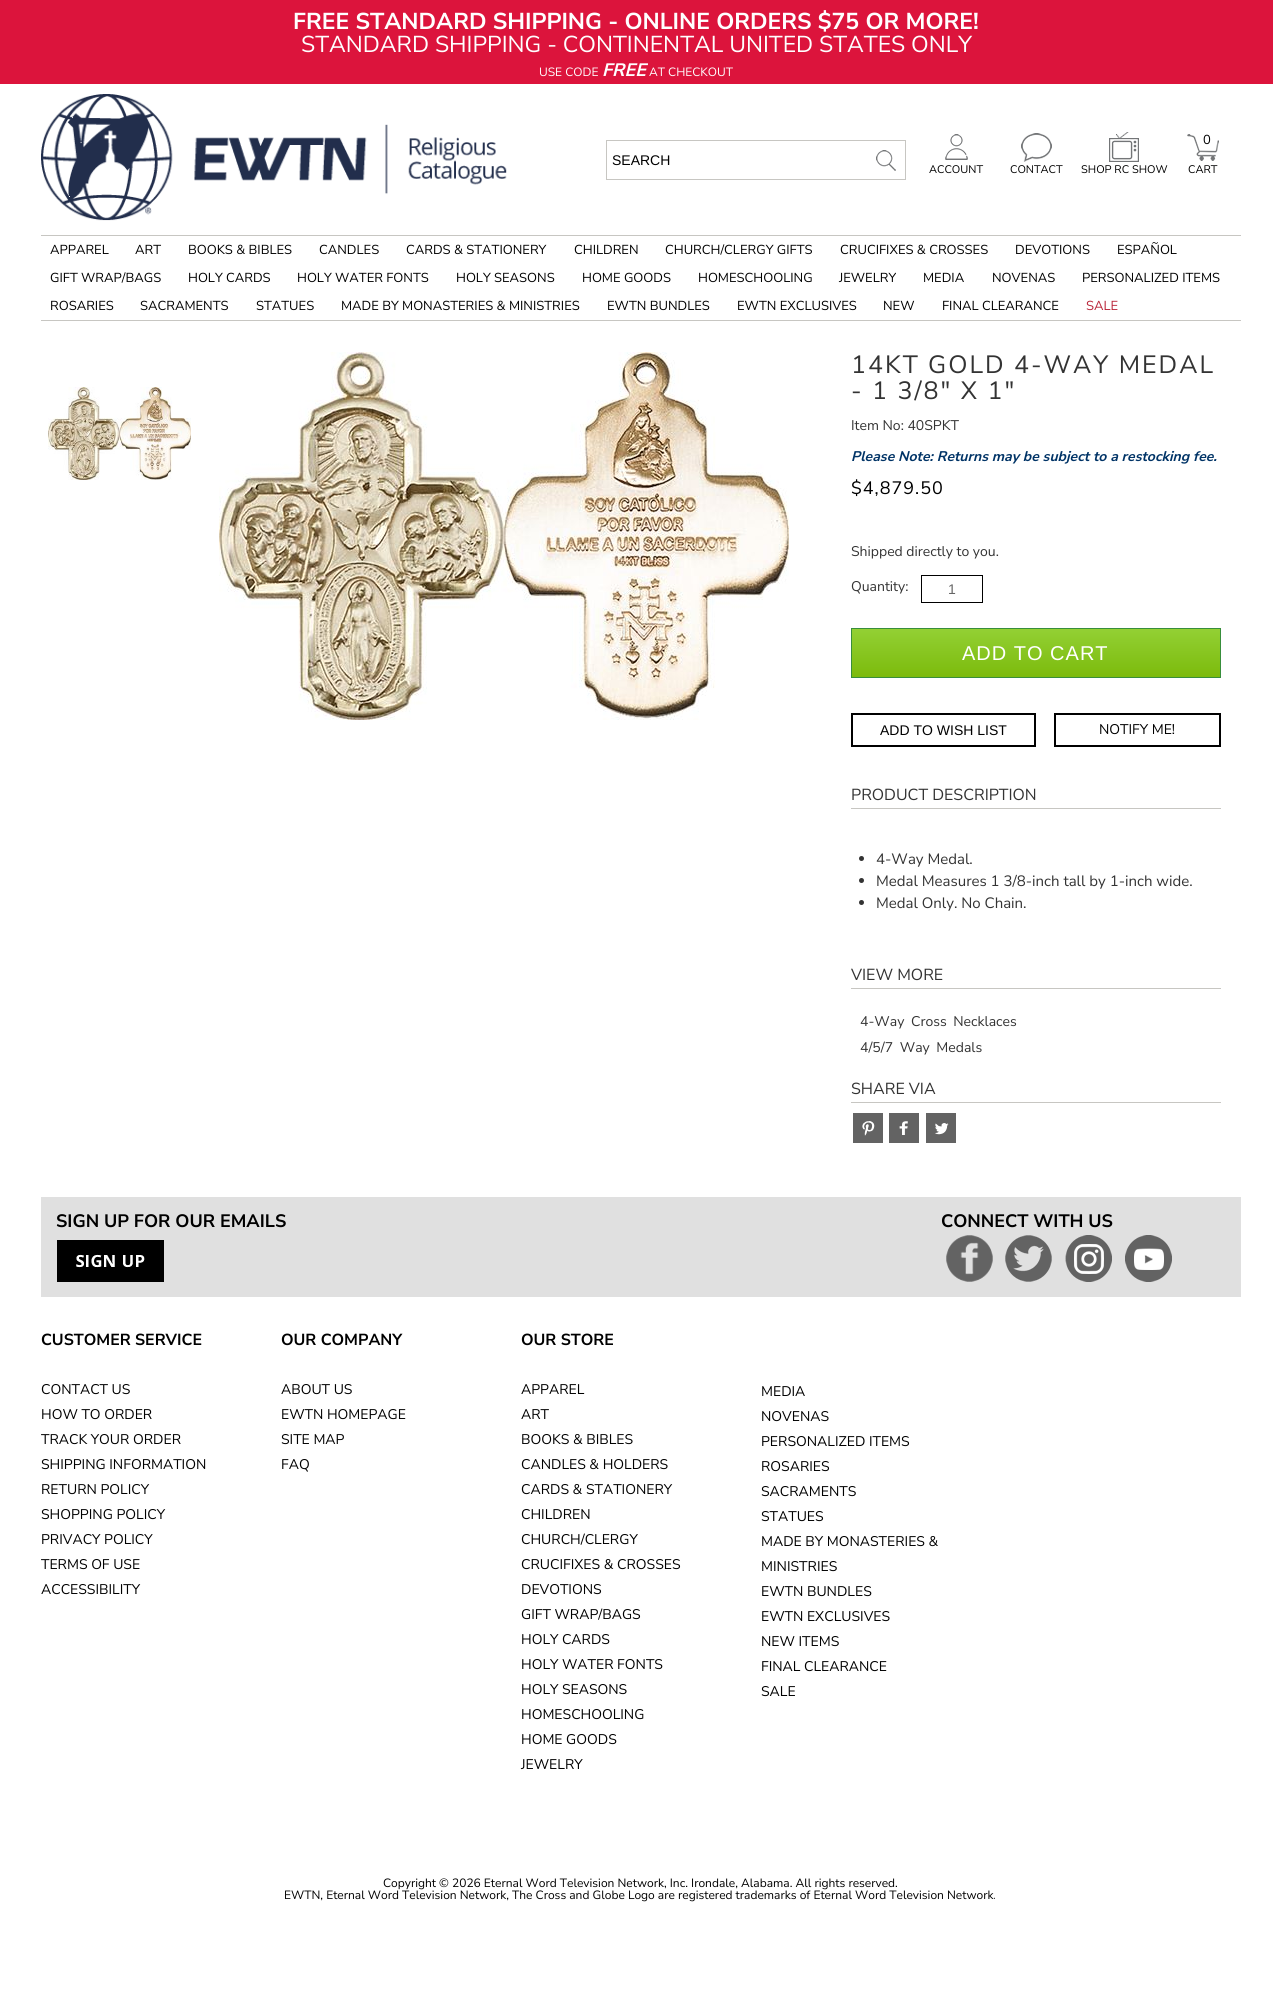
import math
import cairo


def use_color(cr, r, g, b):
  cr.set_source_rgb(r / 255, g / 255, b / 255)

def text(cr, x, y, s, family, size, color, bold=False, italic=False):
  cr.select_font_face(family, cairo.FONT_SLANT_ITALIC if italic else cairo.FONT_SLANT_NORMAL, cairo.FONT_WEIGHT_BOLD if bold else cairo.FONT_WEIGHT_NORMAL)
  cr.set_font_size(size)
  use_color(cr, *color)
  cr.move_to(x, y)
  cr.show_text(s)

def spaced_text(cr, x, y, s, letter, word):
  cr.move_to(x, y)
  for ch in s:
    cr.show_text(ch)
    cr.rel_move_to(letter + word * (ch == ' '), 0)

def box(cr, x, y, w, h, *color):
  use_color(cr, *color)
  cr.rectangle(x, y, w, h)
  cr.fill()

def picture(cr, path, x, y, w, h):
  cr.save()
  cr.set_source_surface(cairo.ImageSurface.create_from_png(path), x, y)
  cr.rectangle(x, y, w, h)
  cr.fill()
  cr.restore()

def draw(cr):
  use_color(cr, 255, 255, 255)
  cr.paint()
  box(cr, 0, 0, 1273, 84, 220, 20, 60)
  cr.rectangle(606.5, 140.5, 299, 39)
  use_color(cr, 199, 198, 194)
  cr.set_line_width(1)
  cr.stroke()
  picture(cr, "img_01.png", 876, 150, 20, 21)
  picture(cr, "img_02.png", 41, 94, 466, 127)
  picture(cr, "img_03.png", 945, 134, 23, 26)
  picture(cr, "img_04.png", 1021, 133, 31, 29)
  picture(cr, "img_05.png", 1109, 132, 30, 30)
  picture(cr, "img_06.png", 1187, 134, 32, 27)
  box(cr, 41, 235, 1200, 1, 199, 198, 194)
  box(cr, 41, 320, 1200, 1, 199, 198, 194)
  picture(cr, "img_07.png", 48, 387, 143, 93)
  picture(cr, "img_08.png", 219, 352, 570, 368)
  cr.rectangle(921.5, 575.5, 61, 27)
  use_color(cr, 0, 0, 0)
  cr.stroke()
  gradient = cairo.LinearGradient(1036, 629, 1036, 677)
  gradient.add_color_stop_rgba(0, 0.576, 0.816, 0.204, 1)
  gradient.add_color_stop_rgba(1, 0.486, 0.733, 0.047, 1)
  cr.set_source(gradient)
  cr.rectangle(852, 629, 368, 48)
  cr.fill()
  cr.rectangle(851.5, 628.5, 369, 49)
  use_color(cr, 56, 142, 60)
  cr.stroke()
  cr.rectangle(852, 714, 183, 32)
  use_color(cr, 0, 0, 0)
  cr.set_line_width(2)
  cr.stroke()
  cr.rectangle(1055, 714, 165, 32)
  cr.stroke()
  box(cr, 851, 808, 370, 1, 199, 198, 194)
  use_color(cr, 51, 51, 51)
  cr.arc(861.5, 858.5, 2.5, 0, 2 * math.pi)
  cr.fill()
  cr.arc(861.5, 880.5, 2.5, 0, 2 * math.pi)
  cr.fill()
  cr.arc(861.5, 902.5, 2.5, 0, 2 * math.pi)
  cr.fill()
  box(cr, 851, 988, 370, 1, 199, 198, 194)
  box(cr, 851, 1102, 370, 1, 199, 198, 194)
  picture(cr, "img_09.png", 853, 1113, 30, 30)
  picture(cr, "img_10.png", 889, 1113, 30, 30)
  picture(cr, "img_11.png", 926, 1113, 30, 30)
  box(cr, 41, 1197, 1200, 100, 224, 224, 224)
  picture(cr, "img_12.png", 57, 1240, 107, 42)
  picture(cr, "img_13.png", 946, 1235, 47, 47)
  picture(cr, "img_14.png", 1005, 1235, 47, 47)
  picture(cr, "img_15.png", 1065, 1235, 47, 47)
  picture(cr, "img_16.png", 1125, 1235, 47, 47)
  text(cr, 293, 29, "FREE STANDARD SHIPPING - ONLINE ORDERS $75 OR MORE!", "Nunito Sans", 23, (255, 255, 255), bold=True)
  text(cr, 301, 52, "STANDARD SHIPPING - CONTINENTAL UNITED STATES ONLY", "Nunito Sans", 23, (255, 255, 255))
  text(cr, 539, 76, "USE CODE", "Nunito Sans", 12, (255, 255, 255))
  text(cr, 602, 76, "FREE", "Nunito Sans", 18, (255, 255, 255), bold=True, italic=True)
  text(cr, 649, 76, "AT CHECKOUT", "Nunito Sans", 12, (255, 255, 255))
  text(cr, 612, 165, "SEARCH", "Liberation Sans", 14, (0, 0, 0))
  text(cr, 929, 173, "ACCOUNT", "Nunito Sans", 11, (0, 0, 0))
  text(cr, 1010, 173, "CONTACT", "Nunito Sans", 11, (0, 0, 0))
  text(cr, 1081, 173, "SHOP RC SHOW", "Nunito Sans", 11, (0, 0, 0))
  text(cr, 1203, 144, "0", "Nunito Sans", 13, (0, 0, 0))
  text(cr, 1188, 173, "CART", "Nunito Sans", 11, (0, 0, 0))
  text(cr, 50, 254, "APPAREL", "Nunito Sans", 13, (0, 0, 0))
  text(cr, 135, 254, "ART", "Nunito Sans", 13, (0, 0, 0))
  text(cr, 188, 254, "BOOKS & BIBLES", "Nunito Sans", 13, (0, 0, 0))
  text(cr, 319, 254, "CANDLES", "Nunito Sans", 13, (0, 0, 0))
  text(cr, 406, 254, "CARDS & STATIONERY", "Nunito Sans", 13, (0, 0, 0))
  text(cr, 574, 254, "CHILDREN", "Nunito Sans", 13, (0, 0, 0))
  text(cr, 665, 254, "CHURCH/CLERGY GIFTS", "Nunito Sans", 13, (0, 0, 0))
  text(cr, 840, 254, "CRUCIFIXES & CROSSES", "Nunito Sans", 13, (0, 0, 0))
  text(cr, 1015, 254, "DEVOTIONS", "Nunito Sans", 13, (0, 0, 0))
  text(cr, 1117, 254, "ESPAÑOL", "Nunito Sans", 13, (0, 0, 0))
  text(cr, 50, 282, "GIFT WRAP/BAGS", "Nunito Sans", 13, (0, 0, 0))
  text(cr, 188, 282, "HOLY CARDS", "Nunito Sans", 13, (0, 0, 0))
  text(cr, 297, 282, "HOLY WATER FONTS", "Nunito Sans", 13, (0, 0, 0))
  text(cr, 456, 282, "HOLY SEASONS", "Nunito Sans", 13, (0, 0, 0))
  text(cr, 582, 282, "HOME GOODS", "Nunito Sans", 13, (0, 0, 0))
  text(cr, 698, 282, "HOMESCHOOLING", "Nunito Sans", 13, (0, 0, 0))
  text(cr, 839, 282, "JEWELRY", "Nunito Sans", 13, (0, 0, 0))
  text(cr, 923, 282, "MEDIA", "Nunito Sans", 13, (0, 0, 0))
  text(cr, 992, 282, "NOVENAS", "Nunito Sans", 13, (0, 0, 0))
  text(cr, 1082, 282, "PERSONALIZED ITEMS", "Nunito Sans", 13, (0, 0, 0))
  text(cr, 50, 310, "ROSARIES", "Nunito Sans", 13, (0, 0, 0))
  text(cr, 140, 310, "SACRAMENTS", "Nunito Sans", 13, (0, 0, 0))
  text(cr, 256, 310, "STATUES", "Nunito Sans", 13, (0, 0, 0))
  text(cr, 341, 310, "MADE BY MONASTERIES & MINISTRIES", "Nunito Sans", 13, (0, 0, 0))
  text(cr, 607, 310, "EWTN BUNDLES", "Nunito Sans", 13, (0, 0, 0))
  text(cr, 737, 310, "EWTN EXCLUSIVES", "Nunito Sans", 13, (0, 0, 0))
  text(cr, 883, 310, "NEW", "Nunito Sans", 13, (0, 0, 0))
  text(cr, 942, 310, "FINAL CLEARANCE", "Nunito Sans", 13, (0, 0, 0))
  text(cr, 1086, 310, "SALE", "Nunito Sans", 13, (185, 36, 56))
  cr.set_font_size(25)
  use_color(cr, 51, 51, 51)
  spaced_text(cr, 851, 373, "14KT GOLD 4-WAY MEDAL", 2, 0)
  spaced_text(cr, 851, 399, "- 1 3/8\" X 1\"", 2, 0)
  text(cr, 851, 430, "Item No: 40SPKT", "Nunito Sans", 14, (51, 51, 51))
  text(cr, 851, 461, "Please Note: Returns may be subject to a restocking fee.", "Nunito Sans", 14, (0, 51, 102), bold=True, italic=True)
  cr.select_font_face("Nunito Sans")
  cr.set_font_size(18)
  use_color(cr, 0, 0, 0)
  spaced_text(cr, 851, 494, "$4,879.50", 1, 0)
  text(cr, 851, 556, "Shipped directly to you.", "Nunito Sans", 14, (51, 51, 51))
  text(cr, 851, 591, "Quantity:", "Nunito Sans", 14, (51, 51, 51))
  text(cr, 948, 594, "1", "Liberation Sans", 14, (102, 102, 102))
  cr.set_font_size(20)
  use_color(cr, 255, 255, 255)
  spaced_text(cr, 962, 660, "ADD TO CART", 1, 0)
  text(cr, 880, 735, "ADD TO WISH LIST", "Liberation Sans", 14, (0, 0, 0))
  text(cr, 1099, 734, "NOTIFY ME!", "Nunito Sans", 14, (0, 0, 0))
  text(cr, 851, 800, "PRODUCT DESCRIPTION", "Nunito Sans", 16, (51, 51, 51))
  text(cr, 876, 864, "4-Way Medal.", "Nunito Sans", 15, (51, 51, 51))
  text(cr, 876, 886, "Medal Measures 1 3/8-inch tall by 1-inch wide.", "Nunito Sans", 15, (51, 51, 51))
  text(cr, 876, 908, "Medal Only. No Chain.", "Nunito Sans", 15, (51, 51, 51))
  text(cr, 851, 980, "VIEW MORE", "Nunito Sans", 16, (51, 51, 51))
  cr.set_font_size(14)
  spaced_text(cr, 860, 1026, "4-Way Cross Necklaces", 0, 3)
  spaced_text(cr, 860, 1052, "4/5/7 Way Medals", 0, 3)
  text(cr, 851, 1094, "SHARE VIA", "Nunito Sans", 16, (51, 51, 51))
  text(cr, 56, 1227, "SIGN UP FOR OUR EMAILS", "Nunito Sans", 18, (0, 0, 0), bold=True)
  text(cr, 941, 1227, "CONNECT WITH US", "Nunito Sans", 18, (0, 0, 0), bold=True)
  text(cr, 41, 1345, "CUSTOMER SERVICE", "Nunito Sans", 16, (0, 0, 0), bold=True)
  text(cr, 41, 1394, "CONTACT US", "Nunito Sans", 14, (0, 0, 0))
  text(cr, 41, 1419, "HOW TO ORDER", "Nunito Sans", 14, (0, 0, 0))
  text(cr, 41, 1444, "TRACK YOUR ORDER", "Nunito Sans", 14, (0, 0, 0))
  text(cr, 41, 1469, "SHIPPING INFORMATION", "Nunito Sans", 14, (0, 0, 0))
  text(cr, 41, 1494, "RETURN POLICY", "Nunito Sans", 14, (0, 0, 0))
  text(cr, 41, 1519, "SHOPPING POLICY", "Nunito Sans", 14, (0, 0, 0))
  text(cr, 41, 1544, "PRIVACY POLICY", "Nunito Sans", 14, (0, 0, 0))
  text(cr, 41, 1569, "TERMS OF USE", "Nunito Sans", 14, (0, 0, 0))
  text(cr, 41, 1594, "ACCESSIBILITY", "Nunito Sans", 14, (0, 0, 0))
  text(cr, 281, 1345, "OUR COMPANY", "Nunito Sans", 16, (0, 0, 0), bold=True)
  text(cr, 281, 1394, "ABOUT US", "Nunito Sans", 14, (0, 0, 0))
  text(cr, 281, 1419, "EWTN HOMEPAGE", "Nunito Sans", 14, (0, 0, 0))
  text(cr, 281, 1444, "SITE MAP", "Nunito Sans", 14, (0, 0, 0))
  text(cr, 281, 1469, "FAQ", "Nunito Sans", 14, (0, 0, 0))
  text(cr, 521, 1345, "OUR STORE", "Nunito Sans", 16, (0, 0, 0), bold=True)
  text(cr, 521, 1394, "APPAREL", "Nunito Sans", 14, (0, 0, 0))
  text(cr, 521, 1419, "ART", "Nunito Sans", 14, (0, 0, 0))
  text(cr, 521, 1444, "BOOKS & BIBLES", "Nunito Sans", 14, (0, 0, 0))
  text(cr, 521, 1469, "CANDLES & HOLDERS", "Nunito Sans", 14, (0, 0, 0))
  text(cr, 521, 1494, "CARDS & STATIONERY", "Nunito Sans", 14, (0, 0, 0))
  text(cr, 521, 1519, "CHILDREN", "Nunito Sans", 14, (0, 0, 0))
  text(cr, 521, 1544, "CHURCH/CLERGY", "Nunito Sans", 14, (0, 0, 0))
  text(cr, 521, 1569, "CRUCIFIXES & CROSSES", "Nunito Sans", 14, (0, 0, 0))
  text(cr, 521, 1594, "DEVOTIONS", "Nunito Sans", 14, (0, 0, 0))
  text(cr, 521, 1619, "GIFT WRAP/BAGS", "Nunito Sans", 14, (0, 0, 0))
  text(cr, 521, 1644, "HOLY CARDS", "Nunito Sans", 14, (0, 0, 0))
  text(cr, 521, 1669, "HOLY WATER FONTS", "Nunito Sans", 14, (0, 0, 0))
  text(cr, 521, 1694, "HOLY SEASONS", "Nunito Sans", 14, (0, 0, 0))
  text(cr, 521, 1719, "HOMESCHOOLING", "Nunito Sans", 14, (0, 0, 0))
  text(cr, 521, 1744, "HOME GOODS", "Nunito Sans", 14, (0, 0, 0))
  text(cr, 521, 1769, "JEWELRY", "Nunito Sans", 14, (0, 0, 0))
  text(cr, 761, 1396, "MEDIA", "Nunito Sans", 14, (0, 0, 0))
  text(cr, 761, 1421, "NOVENAS", "Nunito Sans", 14, (0, 0, 0))
  text(cr, 761, 1446, "PERSONALIZED ITEMS", "Nunito Sans", 14, (0, 0, 0))
  text(cr, 761, 1471, "ROSARIES", "Nunito Sans", 14, (0, 0, 0))
  text(cr, 761, 1496, "SACRAMENTS", "Nunito Sans", 14, (0, 0, 0))
  text(cr, 761, 1521, "STATUES", "Nunito Sans", 14, (0, 0, 0))
  text(cr, 761, 1546, "MADE BY MONASTERIES &", "Nunito Sans", 14, (0, 0, 0))
  text(cr, 761, 1571, "MINISTRIES", "Nunito Sans", 14, (0, 0, 0))
  text(cr, 761, 1596, "EWTN BUNDLES", "Nunito Sans", 14, (0, 0, 0))
  text(cr, 761, 1621, "EWTN EXCLUSIVES", "Nunito Sans", 14, (0, 0, 0))
  text(cr, 761, 1646, "NEW ITEMS", "Nunito Sans", 14, (0, 0, 0))
  text(cr, 761, 1671, "FINAL CLEARANCE", "Nunito Sans", 14, (0, 0, 0))
  text(cr, 761, 1696, "SALE", "Nunito Sans", 14, (0, 0, 0))
  text(cr, 383, 1887, "Copyright © 2026 Eternal Word Television Network, Inc. Irondale, Alabama. All rights reserved.", "Nunito Sans", 12, (0, 0, 0))
  text(cr, 284, 1899, "EWTN, Eternal Word Television Network, The Cross and Globe Logo are registered trademarks of Eternal Word Television Network.", "Nunito Sans", 12, (0, 0, 0))


surface = cairo.ImageSurface(cairo.FORMAT_RGB24, 1281, 2008)
cr = cairo.Context(surface)
options = cairo.FontOptions()
options.set_hint_metrics(cairo.HINT_METRICS_OFF)
options.set_hint_style(cairo.HINT_STYLE_NONE)
cr.set_font_options(options)
cr.set_miter_limit(4)
draw(cr)
surface.write_to_png("out.png")
